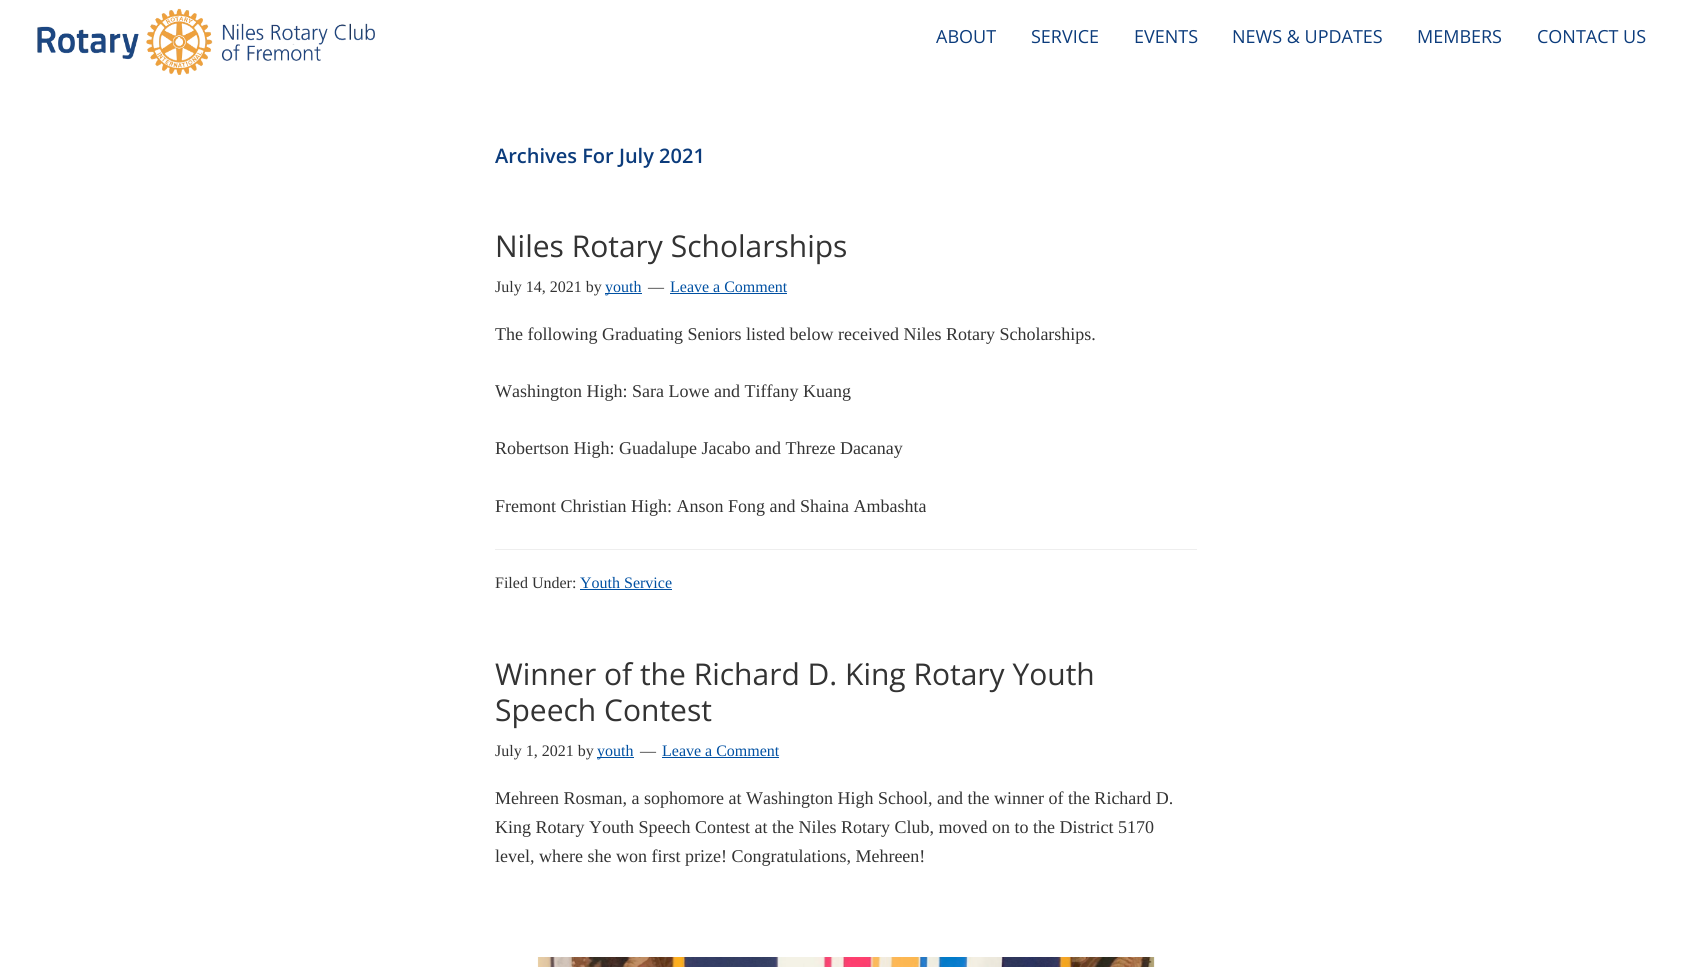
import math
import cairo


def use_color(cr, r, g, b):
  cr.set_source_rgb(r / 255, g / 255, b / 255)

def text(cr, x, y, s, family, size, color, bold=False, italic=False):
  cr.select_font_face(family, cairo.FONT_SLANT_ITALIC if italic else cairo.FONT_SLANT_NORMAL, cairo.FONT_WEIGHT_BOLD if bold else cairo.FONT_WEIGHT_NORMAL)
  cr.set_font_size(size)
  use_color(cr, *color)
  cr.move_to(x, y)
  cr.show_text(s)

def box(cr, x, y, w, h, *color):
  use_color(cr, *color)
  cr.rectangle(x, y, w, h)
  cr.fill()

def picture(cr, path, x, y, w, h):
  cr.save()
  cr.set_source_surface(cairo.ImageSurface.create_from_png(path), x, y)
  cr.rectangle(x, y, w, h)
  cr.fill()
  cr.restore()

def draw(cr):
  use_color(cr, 255, 255, 255)
  cr.paint()
  picture(cr, "img_01.png", 37, 8, 338, 67)
  box(cr, 605, 293, 37, 1, 0, 80, 162)
  box(cr, 670, 293, 117, 1, 0, 80, 162)
  box(cr, 495, 549, 702, 1, 238, 238, 238)
  box(cr, 580, 589, 92, 1, 0, 80, 162)
  box(cr, 597, 757, 37, 1, 0, 80, 162)
  box(cr, 662, 757, 117, 1, 0, 80, 162)
  picture(cr, "img_02.png", 537, 957, 618, 10)
  text(cr, 936, 43, "ABOUT", "Open Sans", 18, (12, 60, 124))
  text(cr, 1031, 43, "SERVICE", "Open Sans", 18, (12, 60, 124))
  text(cr, 1134, 43, "EVENTS", "Open Sans", 18, (12, 60, 124))
  text(cr, 1232, 43, "NEWS & UPDATES", "Open Sans", 18, (12, 60, 124))
  text(cr, 1417, 43, "MEMBERS", "Open Sans", 18, (12, 60, 124))
  text(cr, 1537, 43, "CONTACT US", "Open Sans", 18, (12, 60, 124))
  text(cr, 495, 163, "Archives For July 2021", "Open Sans SemiBold", 20, (12, 60, 124))
  text(cr, 495, 257, "Niles Rotary Scholarships", "Open Sans", 30, (51, 51, 51))
  text(cr, 495, 292, "July 14, 2021 by", "Liberation Serif", 16, (51, 51, 51))
  text(cr, 605, 292, "youth", "Liberation Serif", 16, (0, 80, 162))
  text(cr, 648, 292, "—", "Liberation Serif", 16, (51, 51, 51))
  text(cr, 670, 292, "Leave a Comment", "Liberation Serif", 16, (0, 80, 162))
  text(cr, 495, 340, "The following Graduating Seniors listed below received Niles Rotary Scholarships.", "Liberation Serif", 18, (51, 51, 51))
  text(cr, 495, 397, "Washington High: Sara Lowe and Tiffany Kuang", "Liberation Serif", 18, (51, 51, 51))
  text(cr, 495, 454, "Robertson High: Guadalupe Jacabo and Threze Dacanay", "Liberation Serif", 18, (51, 51, 51))
  text(cr, 495, 512, "Fremont Christian High: Anson Fong and Shaina Ambashta", "Liberation Serif", 18, (51, 51, 51))
  text(cr, 495, 588, "Filed Under:", "Liberation Serif", 16, (51, 51, 51))
  text(cr, 580, 588, "Youth Service", "Liberation Serif", 16, (0, 80, 162))
  text(cr, 495, 685, "Winner of the Richard D. King Rotary Youth", "Open Sans", 30, (51, 51, 51))
  text(cr, 495, 721, "Speech Contest", "Open Sans", 30, (51, 51, 51))
  text(cr, 495, 756, "July 1, 2021 by", "Liberation Serif", 16, (51, 51, 51))
  text(cr, 597, 756, "youth", "Liberation Serif", 16, (0, 80, 162))
  text(cr, 640, 756, "—", "Liberation Serif", 16, (51, 51, 51))
  text(cr, 662, 756, "Leave a Comment", "Liberation Serif", 16, (0, 80, 162))
  text(cr, 495, 804, "Mehreen Rosman, a sophomore at Washington High School, and the winner of the Richard D.", "Liberation Serif", 18, (51, 51, 51))
  text(cr, 495, 833, "King Rotary Youth Speech Contest at the Niles Rotary Club, moved on to the District 5170", "Liberation Serif", 18, (51, 51, 51))
  text(cr, 495, 862, "level, where she won first prize! Congratulations, Mehreen!", "Liberation Serif", 18, (51, 51, 51))


surface = cairo.ImageSurface(cairo.FORMAT_RGB24, 1691, 967)
cr = cairo.Context(surface)
options = cairo.FontOptions()
options.set_hint_metrics(cairo.HINT_METRICS_OFF)
options.set_hint_style(cairo.HINT_STYLE_NONE)
cr.set_font_options(options)
cr.set_miter_limit(4)
draw(cr)
surface.write_to_png("out.png")
